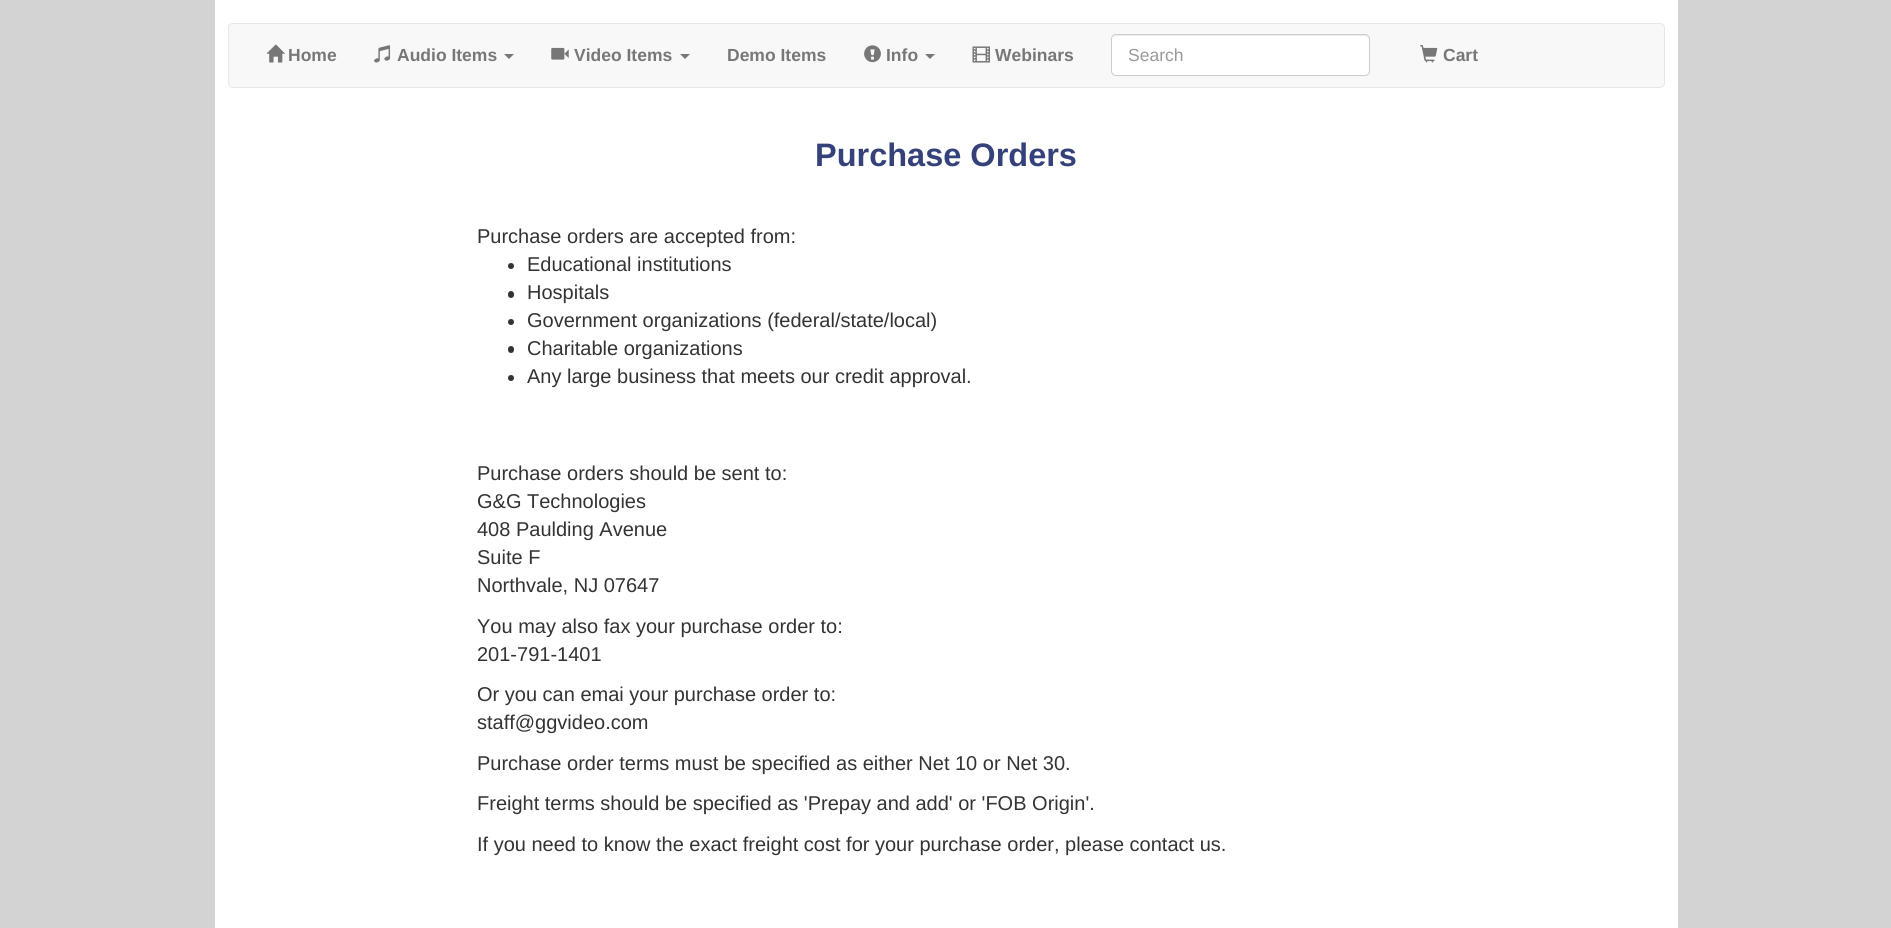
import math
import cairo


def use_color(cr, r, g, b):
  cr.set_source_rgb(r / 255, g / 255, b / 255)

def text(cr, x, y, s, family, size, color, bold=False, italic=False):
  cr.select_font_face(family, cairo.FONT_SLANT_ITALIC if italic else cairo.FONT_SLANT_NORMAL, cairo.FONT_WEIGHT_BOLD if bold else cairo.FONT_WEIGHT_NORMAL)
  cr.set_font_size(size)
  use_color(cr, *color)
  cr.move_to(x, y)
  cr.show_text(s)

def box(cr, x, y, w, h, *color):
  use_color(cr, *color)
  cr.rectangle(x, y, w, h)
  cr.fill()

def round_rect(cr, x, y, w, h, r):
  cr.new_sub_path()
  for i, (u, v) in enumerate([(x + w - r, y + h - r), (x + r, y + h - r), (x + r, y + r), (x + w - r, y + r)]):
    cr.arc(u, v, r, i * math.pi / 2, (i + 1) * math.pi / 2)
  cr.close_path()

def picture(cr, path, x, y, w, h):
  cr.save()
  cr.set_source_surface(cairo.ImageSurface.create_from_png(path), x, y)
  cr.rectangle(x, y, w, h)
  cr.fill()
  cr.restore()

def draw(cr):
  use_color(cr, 211, 211, 211)
  cr.paint()
  box(cr, 215, 0, 1463, 928, 255, 255, 255)
  use_color(cr, 248, 248, 248)
  round_rect(cr, 228.5, 23.5, 1436, 64, 4.5)
  cr.fill_preserve()
  use_color(cr, 231, 231, 231)
  cr.set_line_width(1)
  cr.stroke()
  picture(cr, "img_01.png", 266, 44, 19, 19)
  picture(cr, "img_02.png", 374, 45, 17, 18)
  use_color(cr, 119, 119, 119)
  cr.new_path()
  cr.move_to(504, 54)
  cr.line_to(514, 54)
  cr.line_to(509, 59)
  cr.close_path()
  cr.fill()
  picture(cr, "img_03.png", 551, 47, 18, 13)
  cr.new_path()
  cr.move_to(680, 54)
  cr.line_to(690, 54)
  cr.line_to(685, 59)
  cr.close_path()
  cr.fill()
  picture(cr, "img_04.png", 864, 45, 17, 18)
  cr.new_path()
  cr.move_to(925, 54)
  cr.line_to(935, 54)
  cr.line_to(930, 59)
  cr.close_path()
  cr.fill()
  picture(cr, "img_05.png", 972, 46, 18, 17)
  use_color(cr, 255, 255, 255)
  round_rect(cr, 1111, 34, 259, 42, 5)
  cr.fill()
  use_color(cr, 236, 236, 236)
  cr.new_path()
  cr.move_to(1116, 36)
  cr.line_to(1366, 36)
  cr.line_to(1368, 38)
  cr.line_to(1369, 40)
  cr.line_to(1369, 39)
  cr.curve_to(1369, 37, 1367, 35, 1365, 35)
  cr.line_to(1117, 35)
  cr.curve_to(1116, 35, 1114, 36, 1114, 37)
  cr.close_path()
  cr.fill()
  round_rect(cr, 1111.5, 34.5, 258, 41, 4.5)
  use_color(cr, 204, 204, 204)
  cr.stroke()
  picture(cr, "img_06.png", 1420, 45, 18, 18)
  use_color(cr, 51, 51, 51)
  cr.arc(511, 266, 3, 0, 2 * math.pi)
  cr.fill()
  round_rect(cr, 508, 291, 6, 7, 3)
  cr.fill()
  cr.arc(511, 322, 3, 0, 2 * math.pi)
  cr.fill()
  round_rect(cr, 508, 346, 6, 7, 3)
  cr.fill()
  cr.arc(511, 378, 3, 0, 2 * math.pi)
  cr.fill()
  text(cr, 288, 61, "Home", "Liberation Sans", 17.5, (119, 119, 119), bold=True)
  text(cr, 397, 61, "Audio Items", "Liberation Sans", 17.5, (119, 119, 119), bold=True)
  text(cr, 574, 61, "Video Items", "Liberation Sans", 17.5, (119, 119, 119), bold=True)
  text(cr, 727, 61, "Demo Items", "Liberation Sans", 17.5, (119, 119, 119), bold=True)
  text(cr, 886, 61, "Info", "Liberation Sans", 17.5, (119, 119, 119), bold=True)
  text(cr, 995, 61, "Webinars", "Liberation Sans", 17.5, (119, 119, 119), bold=True)
  text(cr, 1128, 61, "Search", "Liberation Sans", 17.5, (153, 153, 153))
  text(cr, 1443, 61, "Cart", "Liberation Sans", 17.5, (119, 119, 119), bold=True)
  text(cr, 815, 166, "Purchase Orders", "Liberation Sans", 32.5, (53, 66, 122), bold=True)
  text(cr, 477, 243, "Purchase orders are accepted from:", "Liberation Sans", 20, (51, 51, 51))
  text(cr, 527, 271, "Educational institutions", "Liberation Sans", 20, (51, 51, 51))
  text(cr, 527, 299, "Hospitals", "Liberation Sans", 20, (51, 51, 51))
  text(cr, 527, 327, "Government organizations (federal/state/local)", "Liberation Sans", 20, (51, 51, 51))
  text(cr, 527, 355, "Charitable organizations", "Liberation Sans", 20, (51, 51, 51))
  text(cr, 527, 383, "Any large business that meets our credit approval.", "Liberation Sans", 20, (51, 51, 51))
  text(cr, 477, 480, "Purchase orders should be sent to:", "Liberation Sans", 20, (51, 51, 51))
  text(cr, 477, 508, "G&G Technologies", "Liberation Sans", 20, (51, 51, 51))
  text(cr, 477, 536, "408 Paulding Avenue", "Liberation Sans", 20, (51, 51, 51))
  text(cr, 477, 564, "Suite F", "Liberation Sans", 20, (51, 51, 51))
  text(cr, 477, 592, "Northvale, NJ 07647", "Liberation Sans", 20, (51, 51, 51))
  text(cr, 477, 633, "You may also fax your purchase order to:", "Liberation Sans", 20, (51, 51, 51))
  text(cr, 477, 661, "201-791-1401", "Liberation Sans", 20, (51, 51, 51))
  text(cr, 477, 701, "Or you can emai your purchase order to:", "Liberation Sans", 20, (51, 51, 51))
  text(cr, 477, 729, "staff@ggvideo.com", "Liberation Sans", 20, (51, 51, 51))
  text(cr, 477, 770, "Purchase order terms must be specified as either Net 10 or Net 30.", "Liberation Sans", 20, (51, 51, 51))
  text(cr, 477, 810, "Freight terms should be specified as 'Prepay and add' or 'FOB Origin'.", "Liberation Sans", 20, (51, 51, 51))
  text(cr, 477, 851, "If you need to know the exact freight cost for your purchase order, please contact us.", "Liberation Sans", 20, (51, 51, 51))


surface = cairo.ImageSurface(cairo.FORMAT_RGB24, 1891, 928)
cr = cairo.Context(surface)
options = cairo.FontOptions()
options.set_hint_metrics(cairo.HINT_METRICS_OFF)
options.set_hint_style(cairo.HINT_STYLE_NONE)
cr.set_font_options(options)
cr.set_miter_limit(4)
draw(cr)
surface.write_to_png("out.png")
